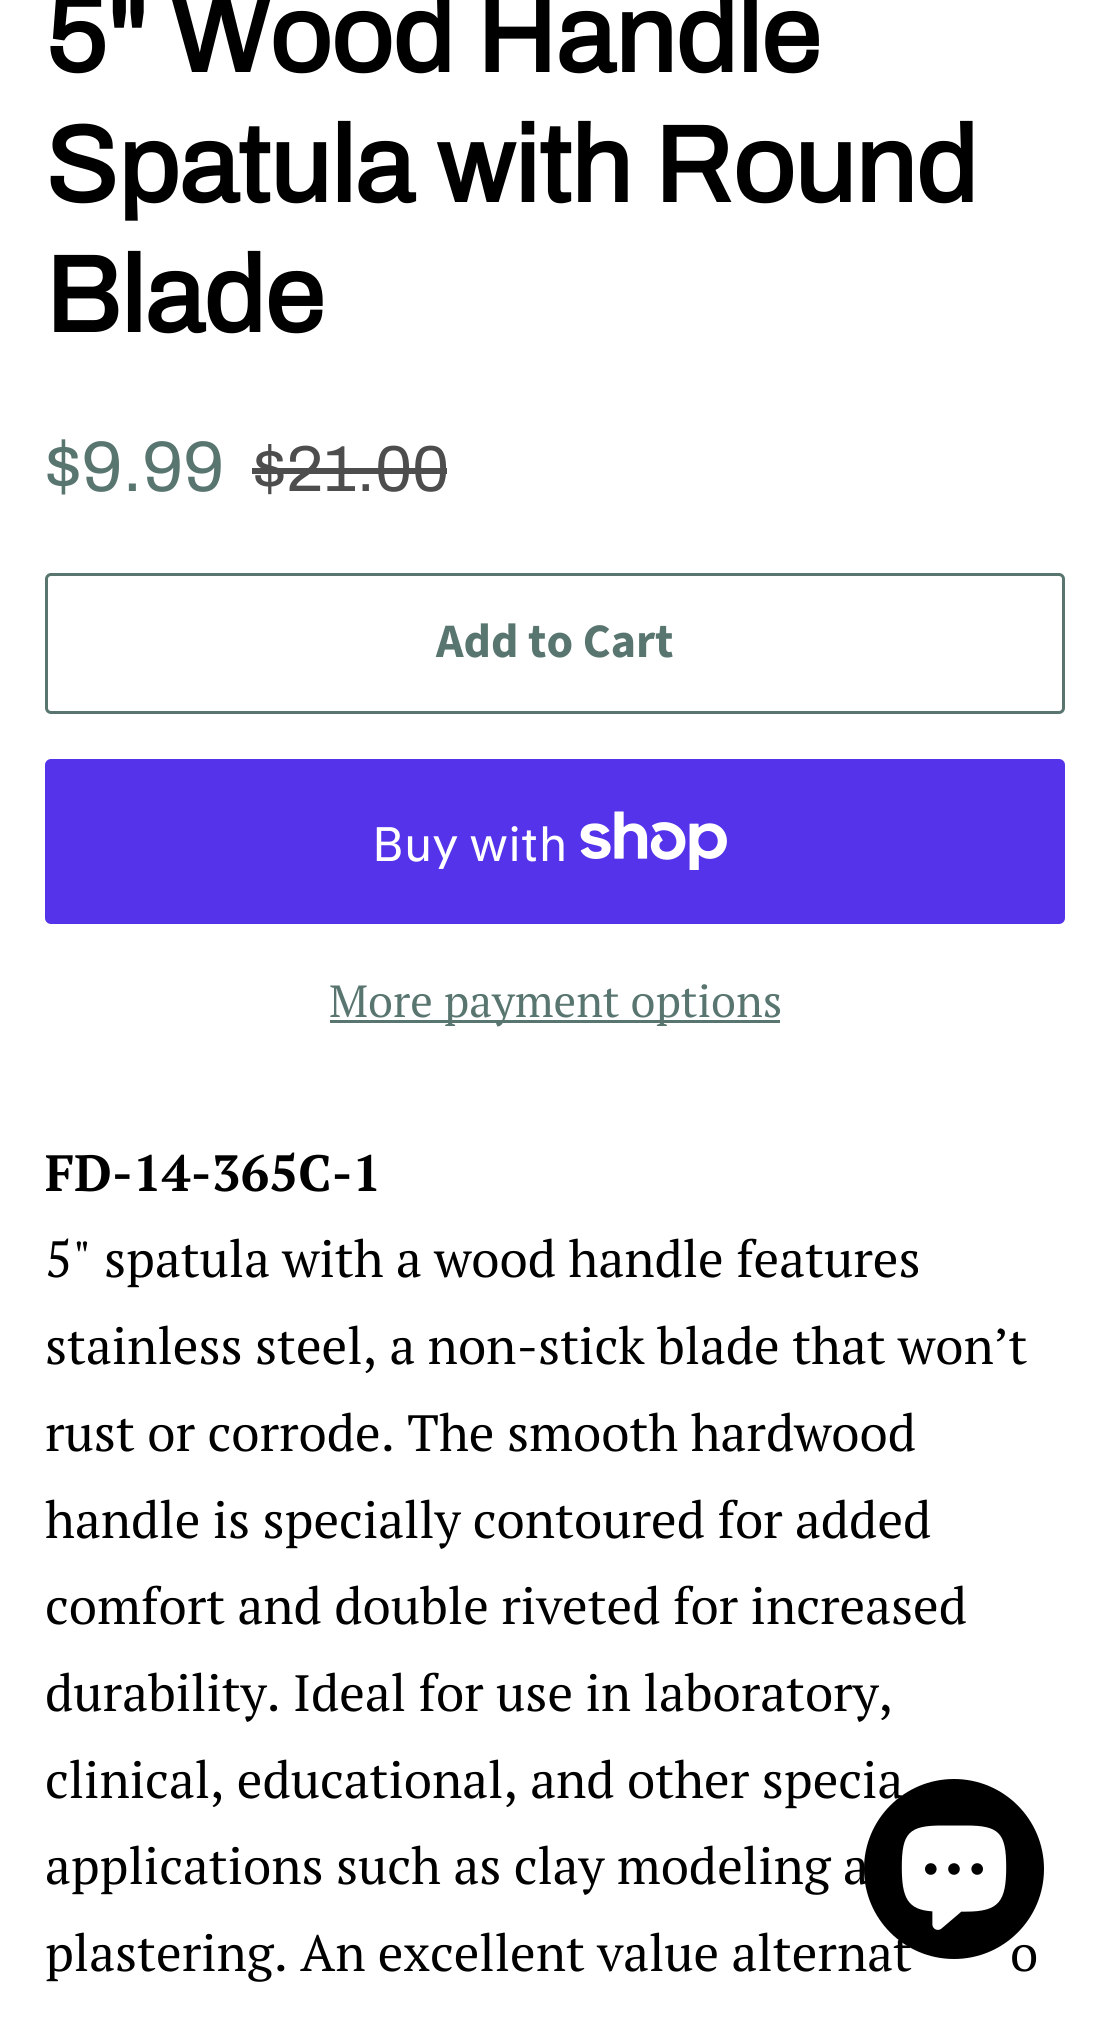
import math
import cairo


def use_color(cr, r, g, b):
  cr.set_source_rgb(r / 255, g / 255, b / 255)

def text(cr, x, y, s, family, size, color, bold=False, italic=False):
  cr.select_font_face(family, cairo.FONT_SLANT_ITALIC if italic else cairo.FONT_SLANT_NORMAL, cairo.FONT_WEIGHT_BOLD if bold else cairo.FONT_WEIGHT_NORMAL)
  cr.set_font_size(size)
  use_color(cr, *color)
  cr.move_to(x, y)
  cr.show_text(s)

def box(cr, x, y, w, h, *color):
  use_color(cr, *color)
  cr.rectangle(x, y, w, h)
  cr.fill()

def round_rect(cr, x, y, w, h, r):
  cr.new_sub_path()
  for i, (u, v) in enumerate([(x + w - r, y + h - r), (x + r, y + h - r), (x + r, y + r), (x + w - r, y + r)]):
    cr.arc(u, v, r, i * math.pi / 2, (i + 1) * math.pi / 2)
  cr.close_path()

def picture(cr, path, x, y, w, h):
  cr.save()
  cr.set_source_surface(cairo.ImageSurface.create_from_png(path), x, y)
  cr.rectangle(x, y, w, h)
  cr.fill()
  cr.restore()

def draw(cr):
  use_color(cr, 255, 255, 255)
  cr.paint()
  box(cr, 252, 468, 195, 6, 77, 77, 77)
  round_rect(cr, 46.5, 574.5, 1017, 138, 4.5)
  use_color(cr, 89, 117, 111)
  cr.set_line_width(3)
  cr.stroke()
  use_color(cr, 84, 51, 235)
  round_rect(cr, 45, 759, 1020, 165, 6)
  cr.fill()
  picture(cr, "img_01.png", 580, 811, 147, 59)
  box(cr, 330, 1020, 450, 3, 89, 117, 111)
  use_color(cr, 0, 0, 0)
  cr.arc(954, 1869, 90, 0, 2 * math.pi)
  cr.fill()
  picture(cr, "img_02.png", 901, 1825, 106, 105)
  text(cr, 45, 72, "5\" Wood Handle", "Archivo", 108, (0, 0, 0), bold=True)
  text(cr, 45, 202, "Spatula with Round", "Archivo", 108, (0, 0, 0), bold=True)
  text(cr, 45, 332, "Blade", "Archivo", 108, (0, 0, 0), bold=True)
  text(cr, 45, 491, "$9.99", "Archivo", 71.5, (89, 117, 111))
  text(cr, 253, 491, "$21.00", "Archivo", 65, (77, 77, 77))
  text(cr, 436, 657, "Add to Cart", "Source Sans Pro", 48, (89, 117, 111), bold=True)
  text(cr, 372, 861, "Buy with", "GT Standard", 48, (255, 255, 255))
  text(cr, 329, 1017, "More payment options", "PT Serif", 45, (89, 117, 111))
  text(cr, 45, 1191, "FD-14-365C-1", "PT Serif", 51, (0, 0, 0), bold=True)
  text(cr, 45, 1277, "5\" spatula with a wood handle features", "PT Serif", 51, (0, 0, 0))
  text(cr, 45, 1364, "stainless steel, a non-stick blade that won’t", "PT Serif", 51, (0, 0, 0))
  text(cr, 45, 1451, "rust or corrode. The smooth hardwood", "PT Serif", 51, (0, 0, 0))
  text(cr, 45, 1538, "handle is specially contoured for added", "PT Serif", 51, (0, 0, 0))
  text(cr, 45, 1624, "comfort and double riveted for increased", "PT Serif", 51, (0, 0, 0))
  text(cr, 45, 1711, "durability. Ideal for use in laboratory,", "PT Serif", 51, (0, 0, 0))
  text(cr, 45, 1798, "clinical, educational, and other specia", "PT Serif", 51, (0, 0, 0))
  text(cr, 45, 1884, "applications such as clay modeling a", "PT Serif", 51, (0, 0, 0))
  text(cr, 45, 1971, "plastering. An excellent value alternat", "PT Serif", 51, (0, 0, 0))
  text(cr, 1010, 1971, "o", "PT Serif", 51, (0, 0, 0))


surface = cairo.ImageSurface(cairo.FORMAT_RGB24, 1109, 2021)
cr = cairo.Context(surface)
options = cairo.FontOptions()
options.set_hint_metrics(cairo.HINT_METRICS_OFF)
options.set_hint_style(cairo.HINT_STYLE_NONE)
cr.set_font_options(options)
cr.set_miter_limit(4)
draw(cr)
surface.write_to_png("out.png")
